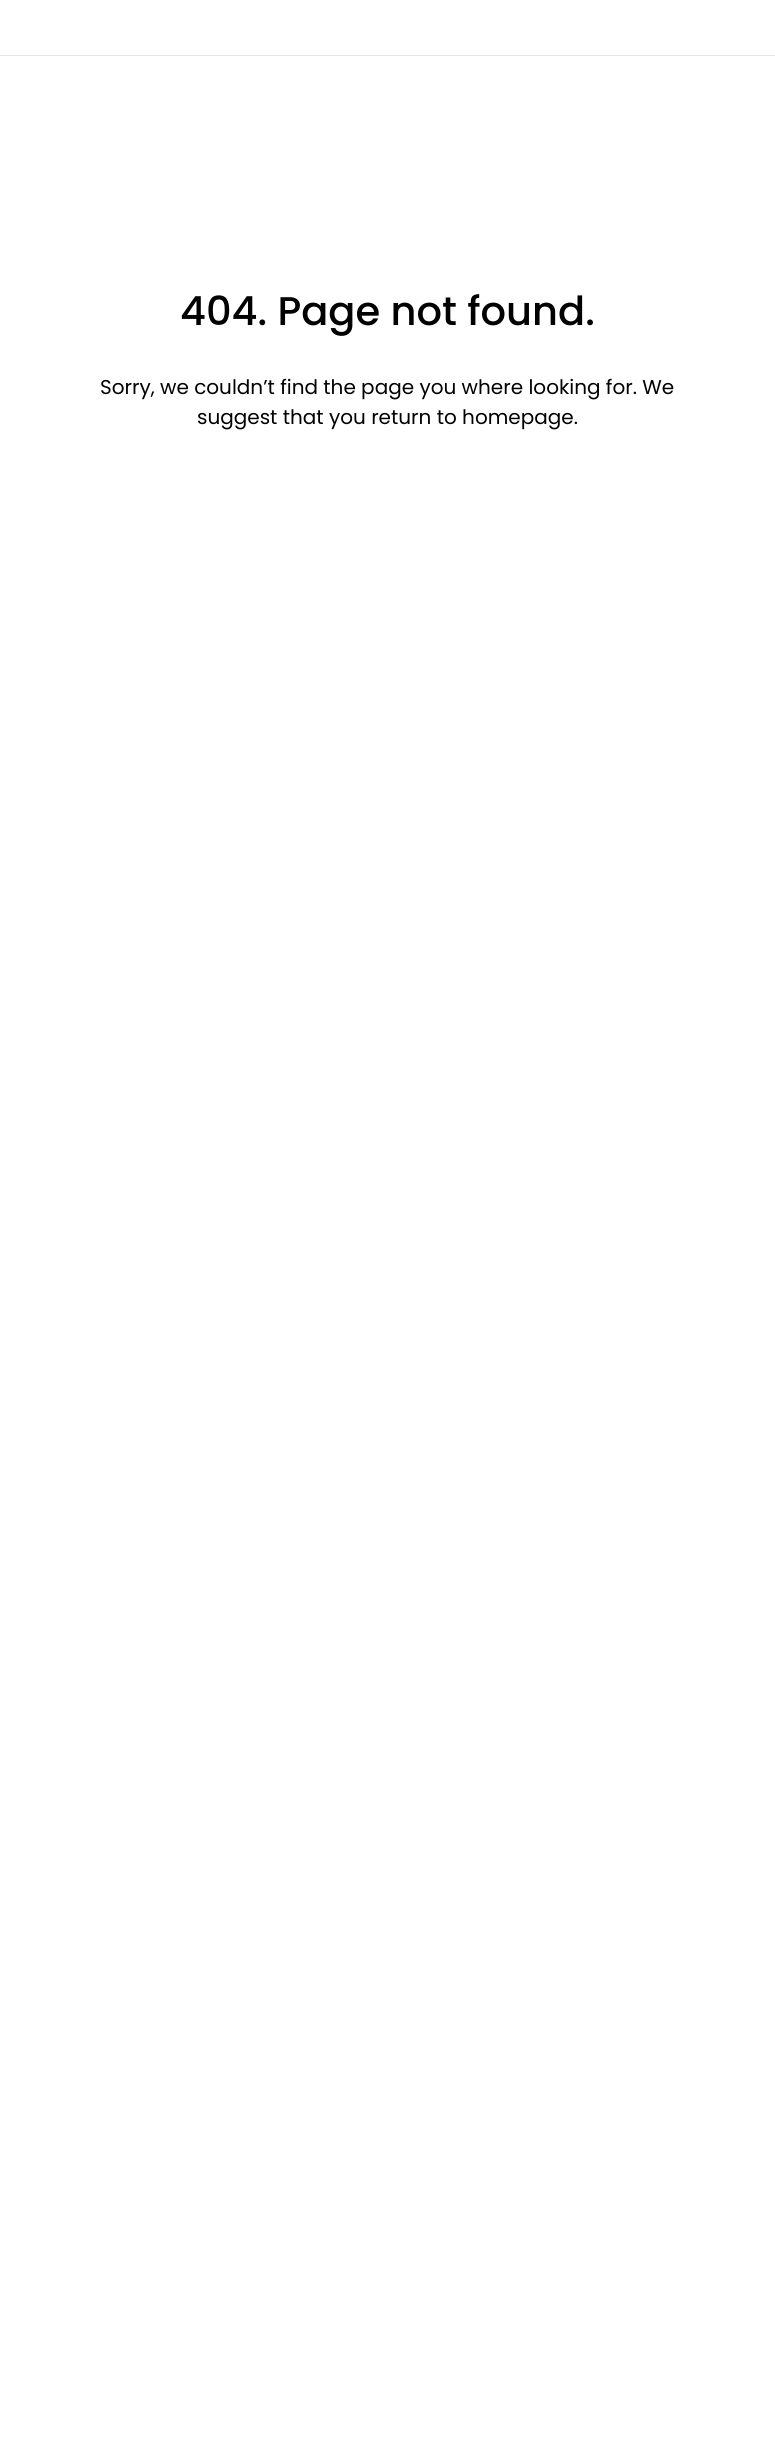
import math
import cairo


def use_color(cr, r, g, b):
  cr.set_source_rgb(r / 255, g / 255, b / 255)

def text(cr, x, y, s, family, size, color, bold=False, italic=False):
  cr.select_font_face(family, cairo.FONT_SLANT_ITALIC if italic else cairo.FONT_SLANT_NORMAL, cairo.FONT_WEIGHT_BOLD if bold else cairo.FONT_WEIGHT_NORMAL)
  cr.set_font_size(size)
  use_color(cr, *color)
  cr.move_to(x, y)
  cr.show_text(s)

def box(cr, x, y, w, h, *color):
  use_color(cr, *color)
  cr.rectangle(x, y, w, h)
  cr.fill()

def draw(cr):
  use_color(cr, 255, 255, 255)
  cr.paint()
  box(cr, 0, 55, 775, 1, 229, 229, 229)
  text(cr, 180, 325, "404. Page not found.", "Poppins Medium", 40, (0, 0, 0))
  text(cr, 100, 394, "Sorry, we couldn’t find the page you where looking for. We", "Poppins", 20, (0, 0, 0))
  text(cr, 197, 424, "suggest that you return to homepage.", "Poppins", 20, (0, 0, 0))


surface = cairo.ImageSurface(cairo.FORMAT_RGB24, 775, 2445)
cr = cairo.Context(surface)
options = cairo.FontOptions()
options.set_hint_metrics(cairo.HINT_METRICS_OFF)
options.set_hint_style(cairo.HINT_STYLE_NONE)
cr.set_font_options(options)
cr.set_miter_limit(4)
draw(cr)
surface.write_to_png("out.png")
